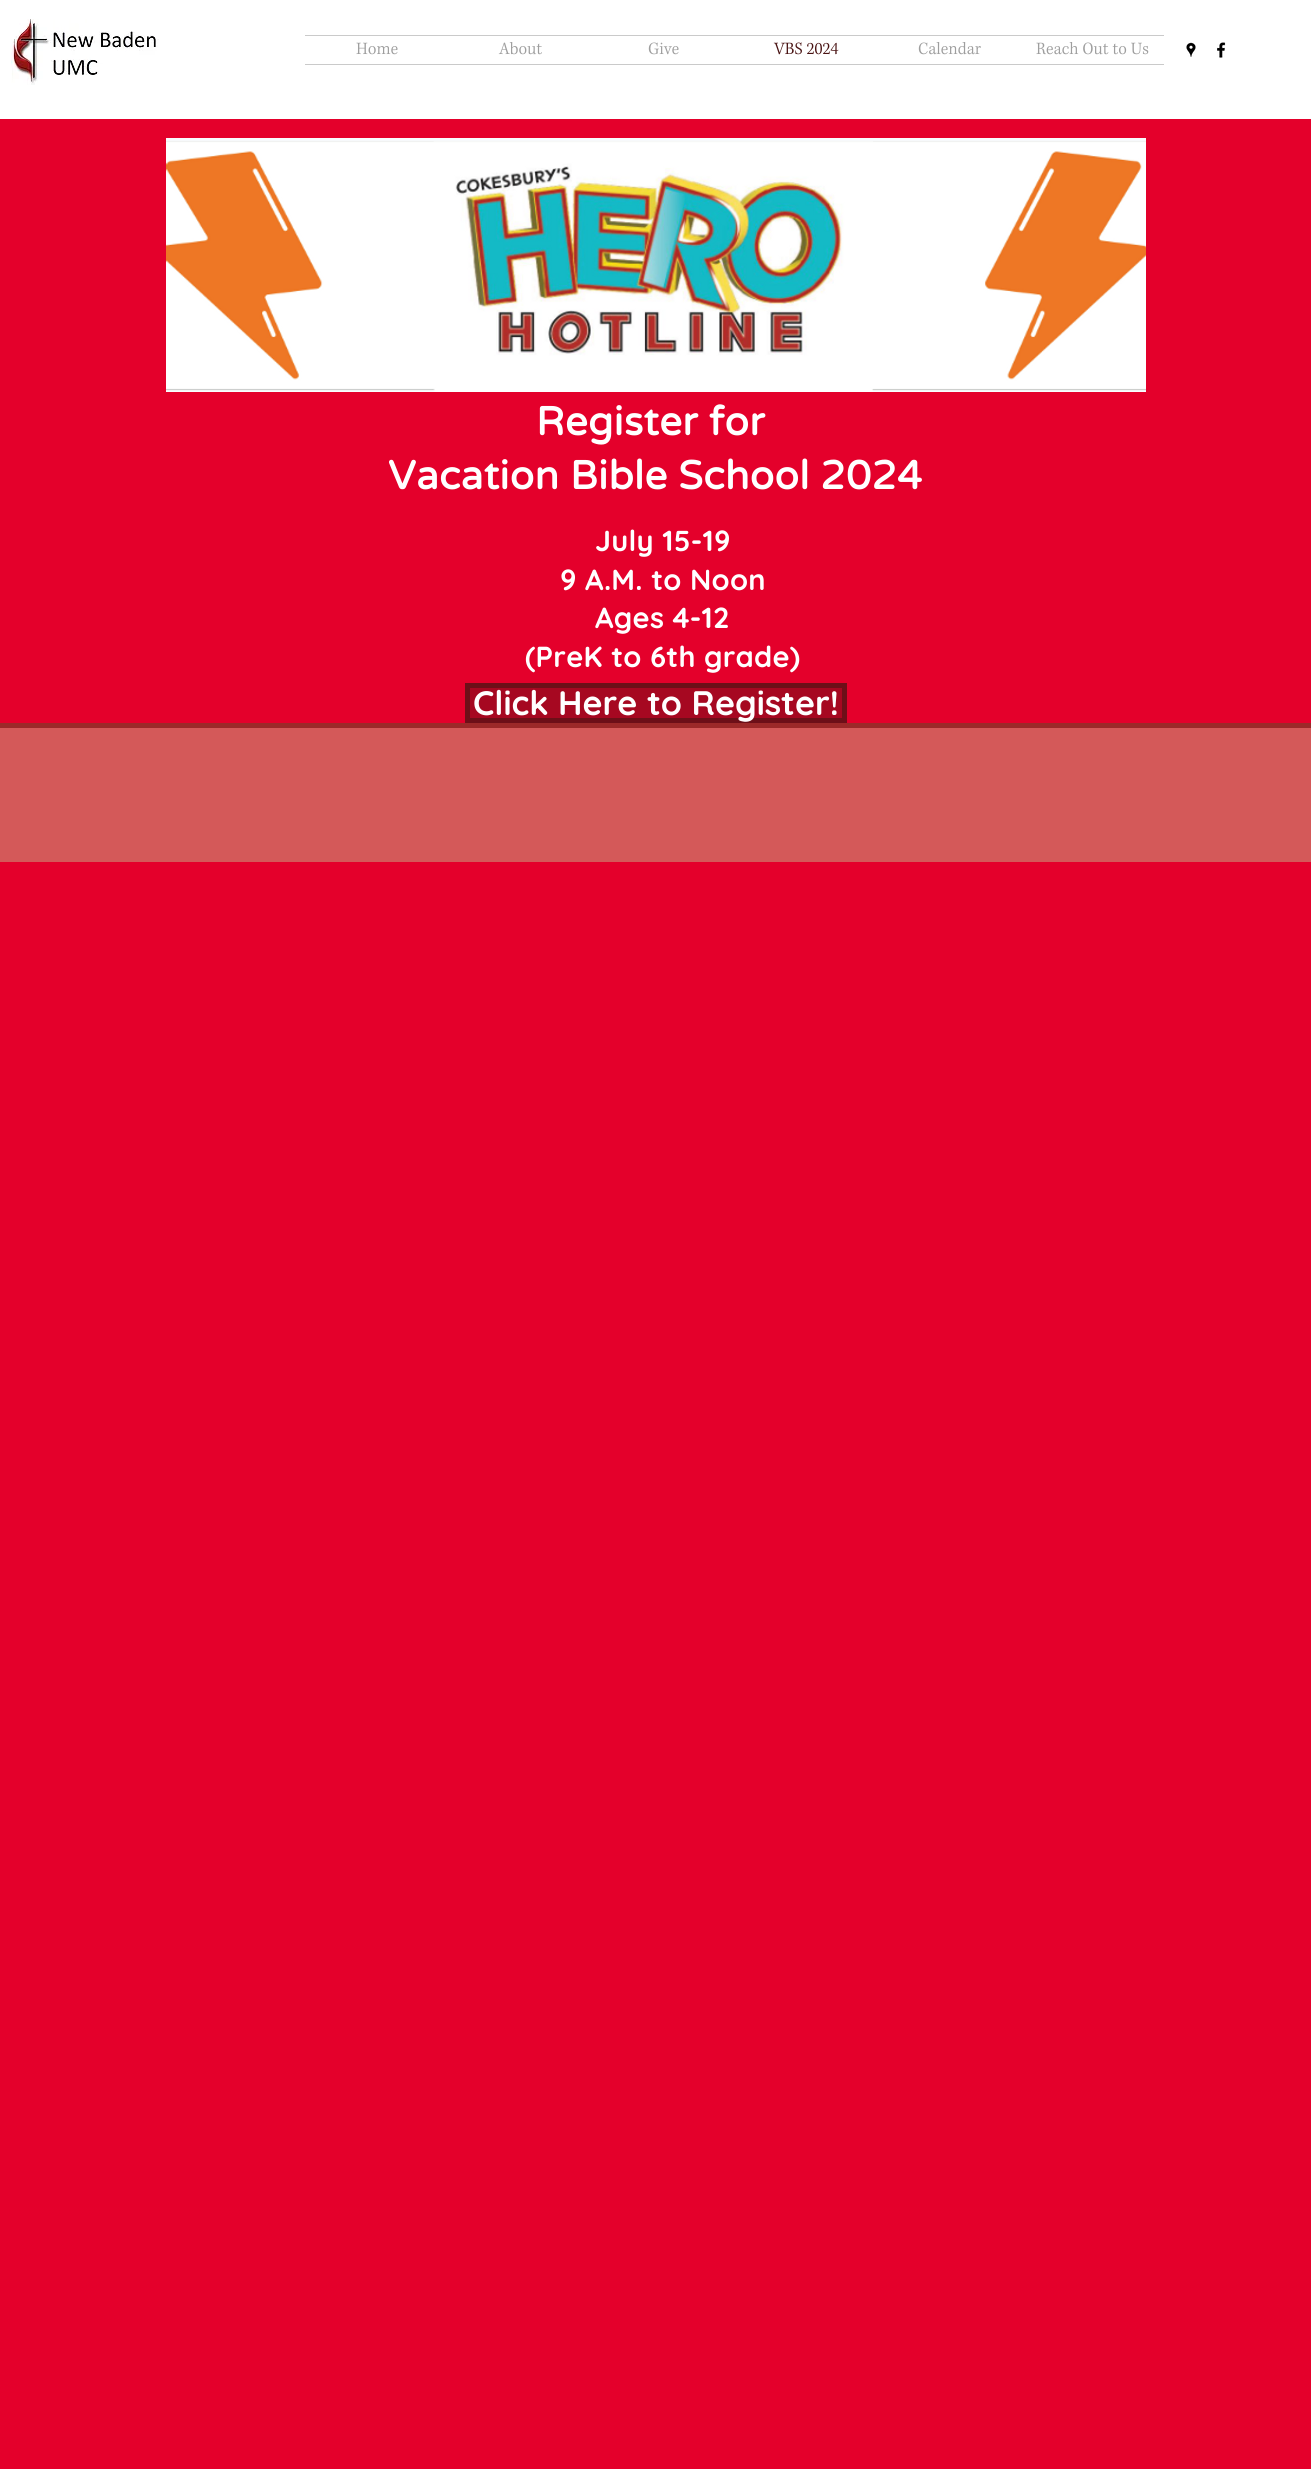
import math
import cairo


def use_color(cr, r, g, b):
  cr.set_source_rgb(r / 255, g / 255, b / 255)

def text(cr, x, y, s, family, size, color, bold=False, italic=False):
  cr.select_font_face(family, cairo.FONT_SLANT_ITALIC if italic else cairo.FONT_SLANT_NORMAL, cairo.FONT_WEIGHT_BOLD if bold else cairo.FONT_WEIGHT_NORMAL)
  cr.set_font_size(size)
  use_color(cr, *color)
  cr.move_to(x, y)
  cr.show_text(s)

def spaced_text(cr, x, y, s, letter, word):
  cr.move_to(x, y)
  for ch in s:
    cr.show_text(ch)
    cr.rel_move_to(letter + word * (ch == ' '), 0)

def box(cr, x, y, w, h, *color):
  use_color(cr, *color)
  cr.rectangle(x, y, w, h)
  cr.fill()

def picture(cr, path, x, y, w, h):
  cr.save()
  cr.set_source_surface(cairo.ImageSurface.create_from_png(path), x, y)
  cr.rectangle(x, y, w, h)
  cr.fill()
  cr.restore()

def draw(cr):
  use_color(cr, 228, 0, 43)
  cr.paint()
  box(cr, 0, 0, 1311, 119, 255, 255, 255)
  picture(cr, "img_01.png", 11, 19, 148, 66)
  box(cr, 305, 35, 859, 1, 202, 202, 202)
  box(cr, 305, 64, 859, 1, 202, 202, 202)
  picture(cr, "img_02.png", 356, 42, 42, 13)
  picture(cr, "img_03.png", 498, 42, 44, 13)
  picture(cr, "img_04.png", 648, 42, 31, 13)
  picture(cr, "img_05.png", 773, 42, 66, 13)
  picture(cr, "img_06.png", 918, 42, 63, 13)
  picture(cr, "img_07.png", 1036, 42, 113, 13)
  picture(cr, "img_08.png", 1186, 42, 10, 15)
  picture(cr, "img_09.png", 1217, 42, 9, 16)
  picture(cr, "img_10.png", 166, 138, 980, 254)
  use_color(cr, 166, 8, 33)
  cr.rectangle(467.5, 685.5, 377, 35)
  cr.fill_preserve()
  use_color(cr, 109, 15, 24)
  cr.set_line_width(5)
  cr.stroke()
  box(cr, 0, 728, 1311, 134, 212, 89, 89)
  box(cr, 0, 723, 1311, 5, 156, 41, 41)
  cr.select_font_face("Varela Round", cairo.FONT_SLANT_NORMAL, cairo.FONT_WEIGHT_BOLD)
  cr.set_font_size(40)
  use_color(cr, 255, 255, 255)
  spaced_text(cr, 536, 435, "Register for", 0.4, 0)
  spaced_text(cr, 388, 489, "Vacation Bible School 2024", 0.4, 0)
  cr.select_font_face("Quicksand", cairo.FONT_SLANT_NORMAL, cairo.FONT_WEIGHT_BOLD)
  cr.set_font_size(29)
  spaced_text(cr, 595, 551, "July 15-19", 0.25, 0)
  spaced_text(cr, 560, 590, "9 A.M. to Noon", 0.25, 0)
  spaced_text(cr, 595, 628, "Ages 4-12", 0.25, 0)
  spaced_text(cr, 525, 667, "(PreK to 6th grade)", 0.25, 0)
  text(cr, 473, 715, "Click Here to Register!", "Quicksand", 34, (255, 255, 255), bold=True)


surface = cairo.ImageSurface(cairo.FORMAT_RGB24, 1311, 2469)
cr = cairo.Context(surface)
options = cairo.FontOptions()
options.set_hint_metrics(cairo.HINT_METRICS_OFF)
options.set_hint_style(cairo.HINT_STYLE_NONE)
cr.set_font_options(options)
cr.set_miter_limit(4)
draw(cr)
surface.write_to_png("out.png")
